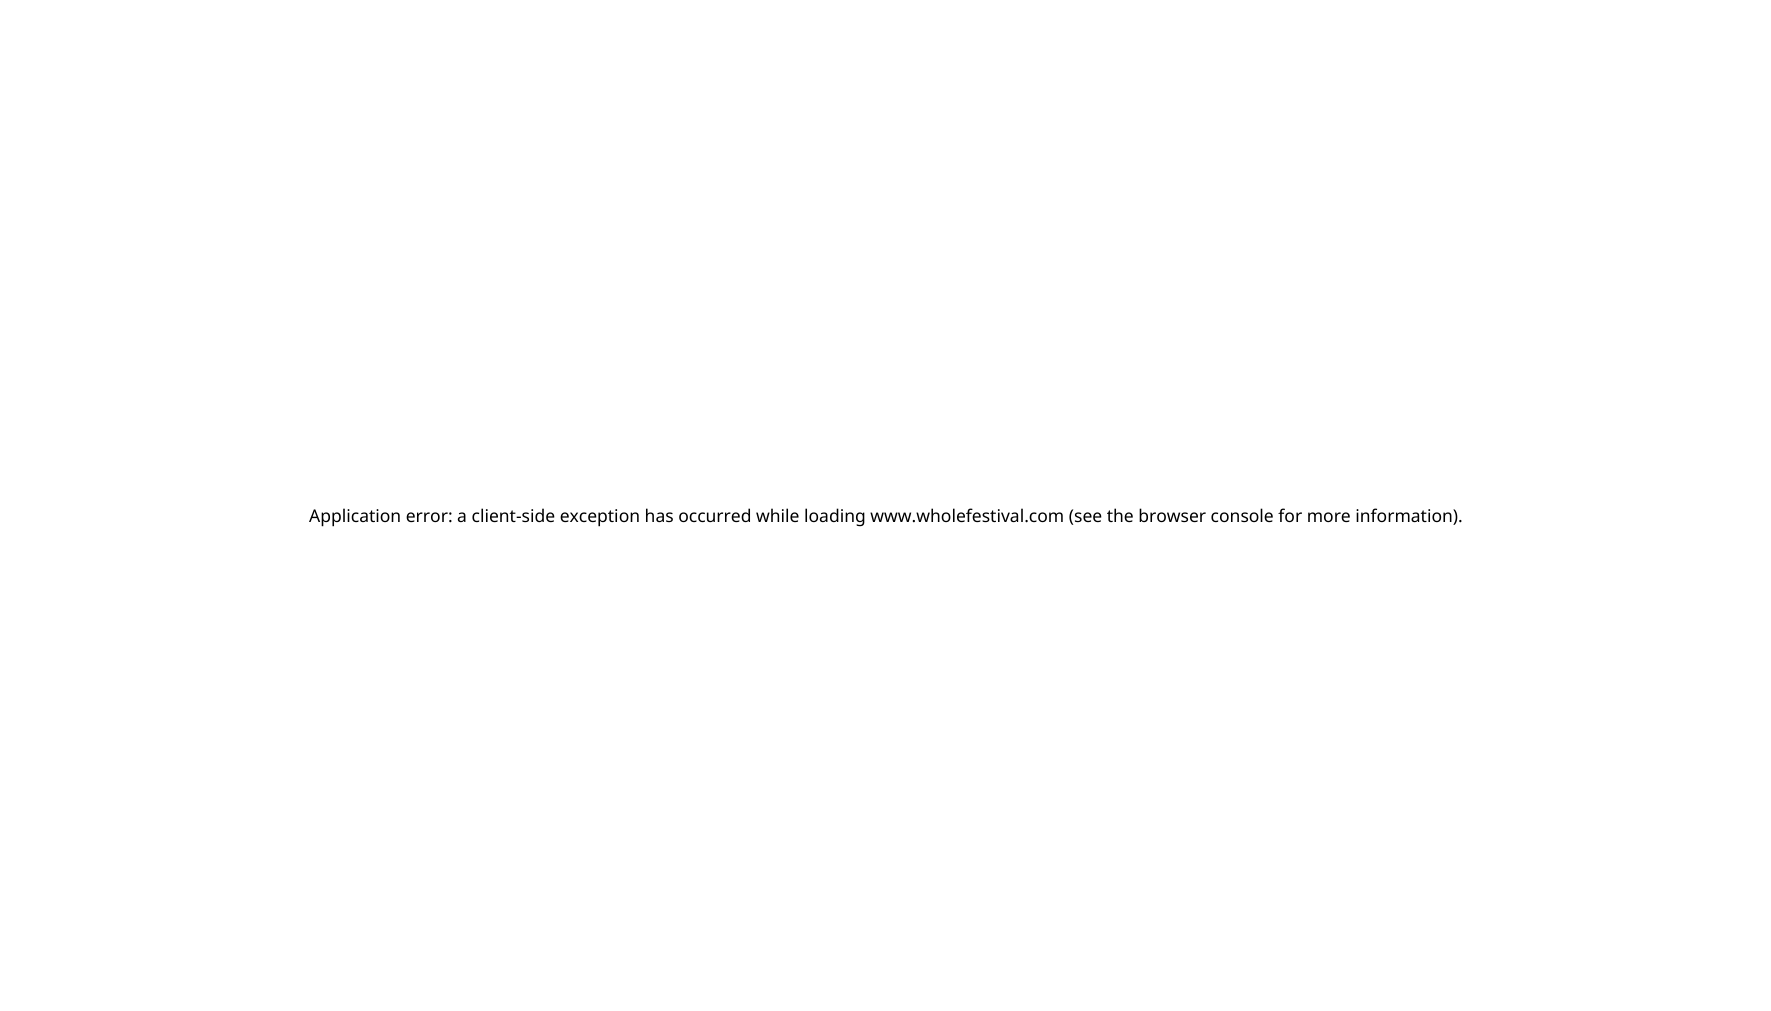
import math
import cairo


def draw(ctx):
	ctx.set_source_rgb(1, 1, 1)
	ctx.paint()
	ctx.select_font_face('Noto Sans')
	ctx.set_font_size(17.5)
	ctx.set_source_rgb(0, 0, 0)
	ctx.move_to(309, 522)
	ctx.show_text('Application error: a client-side exception has occurred while loading www.wholefestival.com (see the browser console for more information).')


surface = cairo.ImageSurface(cairo.FORMAT_RGB24, 1771, 1011)
ctx = cairo.Context(surface)
options = cairo.FontOptions()
options.set_hint_metrics(cairo.HINT_METRICS_OFF)
options.set_hint_style(cairo.HINT_STYLE_NONE)
ctx.set_font_options(options)
ctx.set_miter_limit(4)
draw(ctx)
surface.write_to_png('image.png')
